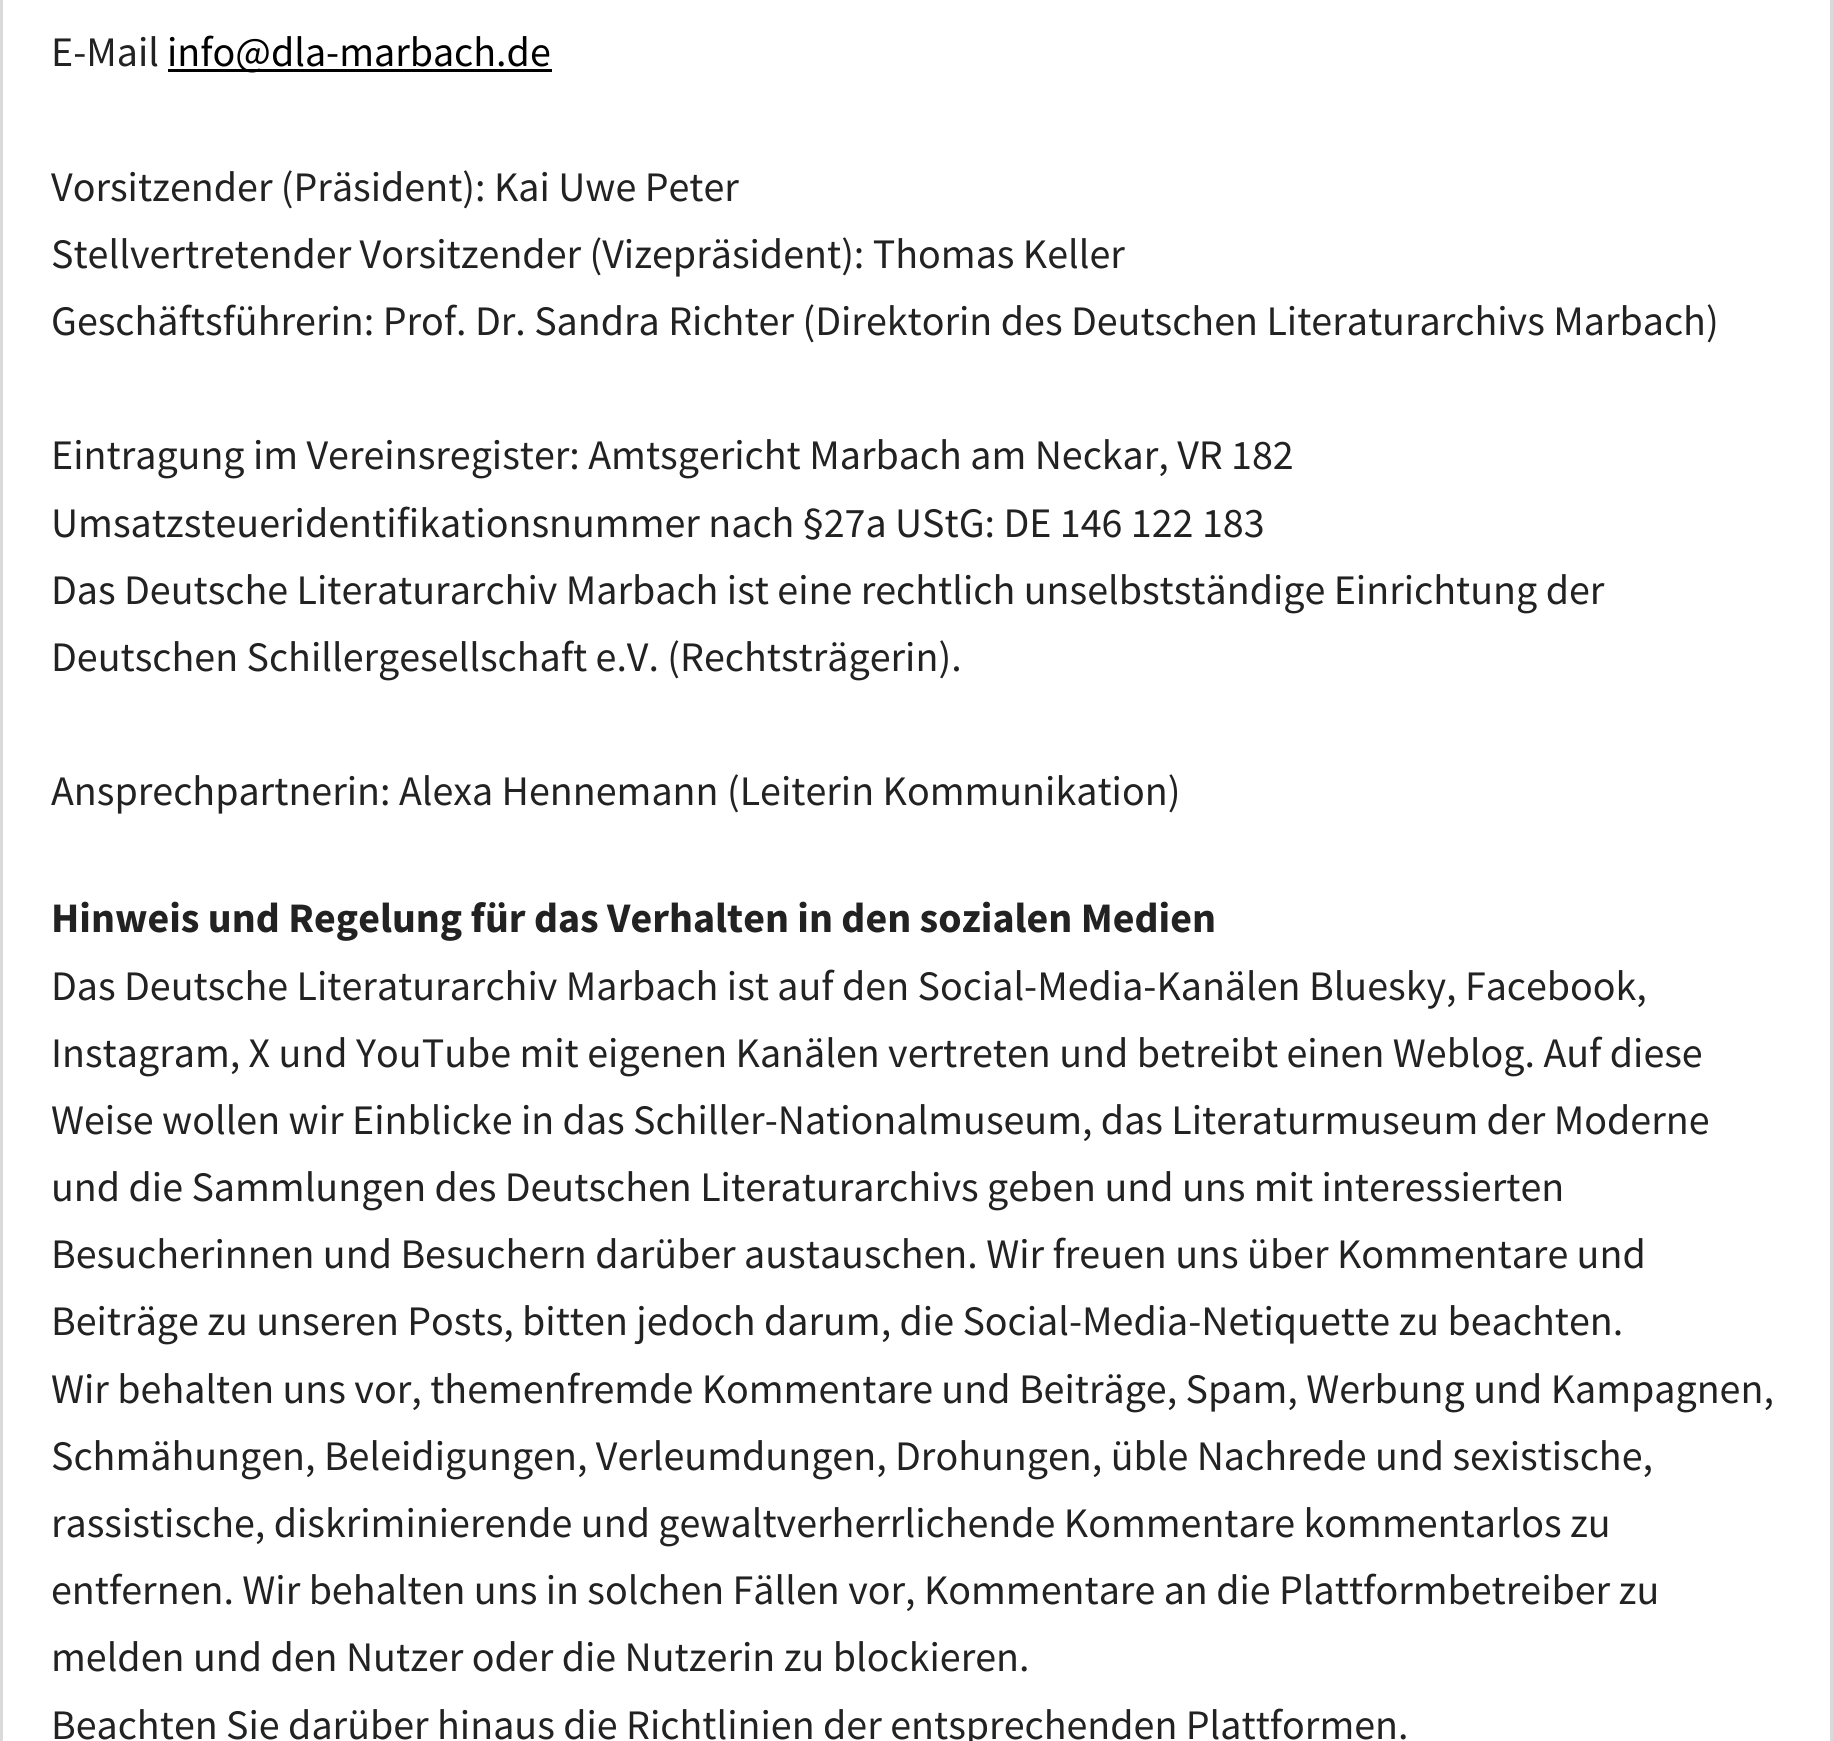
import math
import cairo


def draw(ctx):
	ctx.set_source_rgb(1, 1, 1)
	ctx.paint()
	ctx.set_source_rgb(0.855, 0.855, 0.855)
	ctx.rectangle(1830, 0, 3, 1741)
	ctx.fill()
	ctx.rectangle(0, 0, 3, 1741)
	ctx.fill()
	ctx.select_font_face('Source Sans Pro')
	ctx.set_font_size(42)
	ctx.set_source_rgb(0.133, 0.133, 0.133)
	ctx.move_to(51, 66)
	ctx.show_text('E-Mail')
	ctx.set_source_rgb(0, 0, 0)
	ctx.rectangle(168, 69, 384, 3)
	ctx.fill()
	ctx.move_to(167, 66)
	ctx.show_text('info@dla-marbach.de')
	ctx.set_source_rgb(0.133, 0.133, 0.133)
	for x, y, s in [
		(51, 201, 'Vorsitzender (Präsident): Kai Uwe Peter'),
		(51, 268, 'Stellvertretender Vorsitzender (Vizepräsident): Thomas Keller'),
		(51, 335, 'Geschäftsführerin: Prof. Dr. Sandra Richter (Direktorin des Deutschen Literaturarchivs Marbach)'),
		(51, 469, 'Eintragung im Vereinsregister: Amtsgericht Marbach am Neckar, VR 182'),
		(51, 537, 'Umsatzsteueridentifikationsnummer nach §27a UStG: DE 146 122 183'),
		(51, 604, 'Das Deutsche Literaturarchiv Marbach ist eine rechtlich unselbstständige Einrichtung der'),
		(51, 671, 'Deutschen Schillergesellschaft e.V. (Rechtsträgerin).'),
		(51, 805, 'Ansprechpartnerin: Alexa Hennemann (Leiterin Kommunikation)'),
	]:
		ctx.move_to(x, y)
		ctx.show_text(s)
	ctx.select_font_face('Source Sans Pro', cairo.FONT_SLANT_NORMAL, cairo.FONT_WEIGHT_BOLD)
	ctx.move_to(51, 932)
	ctx.show_text('Hinweis und Regelung für das Verhalten in den sozialen Medien')
	ctx.select_font_face('Source Sans Pro')
	for x, y, s in [
		(51, 1000, 'Das Deutsche Literaturarchiv Marbach ist auf den Social-Media-Kanälen Bluesky, Facebook,'),
		(51, 1067, 'Instagram, X und YouTube mit eigenen Kanälen vertreten und betreibt einen Weblog. Auf diese'),
		(51, 1134, 'Weise wollen wir Einblicke in das Schiller-Nationalmuseum, das Literaturmuseum der Moderne'),
		(51, 1201, 'und die Sammlungen des Deutschen Literaturarchivs geben und uns mit interessierten'),
		(51, 1268, 'Besucherinnen und Besuchern darüber austauschen. Wir freuen uns über Kommentare und'),
		(51, 1335, 'Beiträge zu unseren Posts, bitten jedoch darum, die Social-Media-Netiquette zu beachten.'),
		(51, 1403, 'Wir behalten uns vor, themenfremde Kommentare und Beiträge, Spam, Werbung und Kampagnen,'),
		(51, 1470, 'Schmähungen, Beleidigungen, Verleumdungen, Drohungen, üble Nachrede und sexistische,'),
		(51, 1537, 'rassistische, diskriminierende und gewaltverherrlichende Kommentare kommentarlos zu'),
		(51, 1604, 'entfernen. Wir behalten uns in solchen Fällen vor, Kommentare an die Plattformbetreiber zu'),
		(51, 1671, 'melden und den Nutzer oder die Nutzerin zu blockieren.'),
		(51, 1739, 'Beachten Sie darüber hinaus die Richtlinien der entsprechenden Plattformen.'),
	]:
		ctx.move_to(x, y)
		ctx.show_text(s)


surface = cairo.ImageSurface(cairo.FORMAT_RGB24, 1833, 1741)
ctx = cairo.Context(surface)
options = cairo.FontOptions()
options.set_hint_metrics(cairo.HINT_METRICS_OFF)
options.set_hint_style(cairo.HINT_STYLE_NONE)
ctx.set_font_options(options)
ctx.set_miter_limit(4)
draw(ctx)
surface.write_to_png('image.png')
